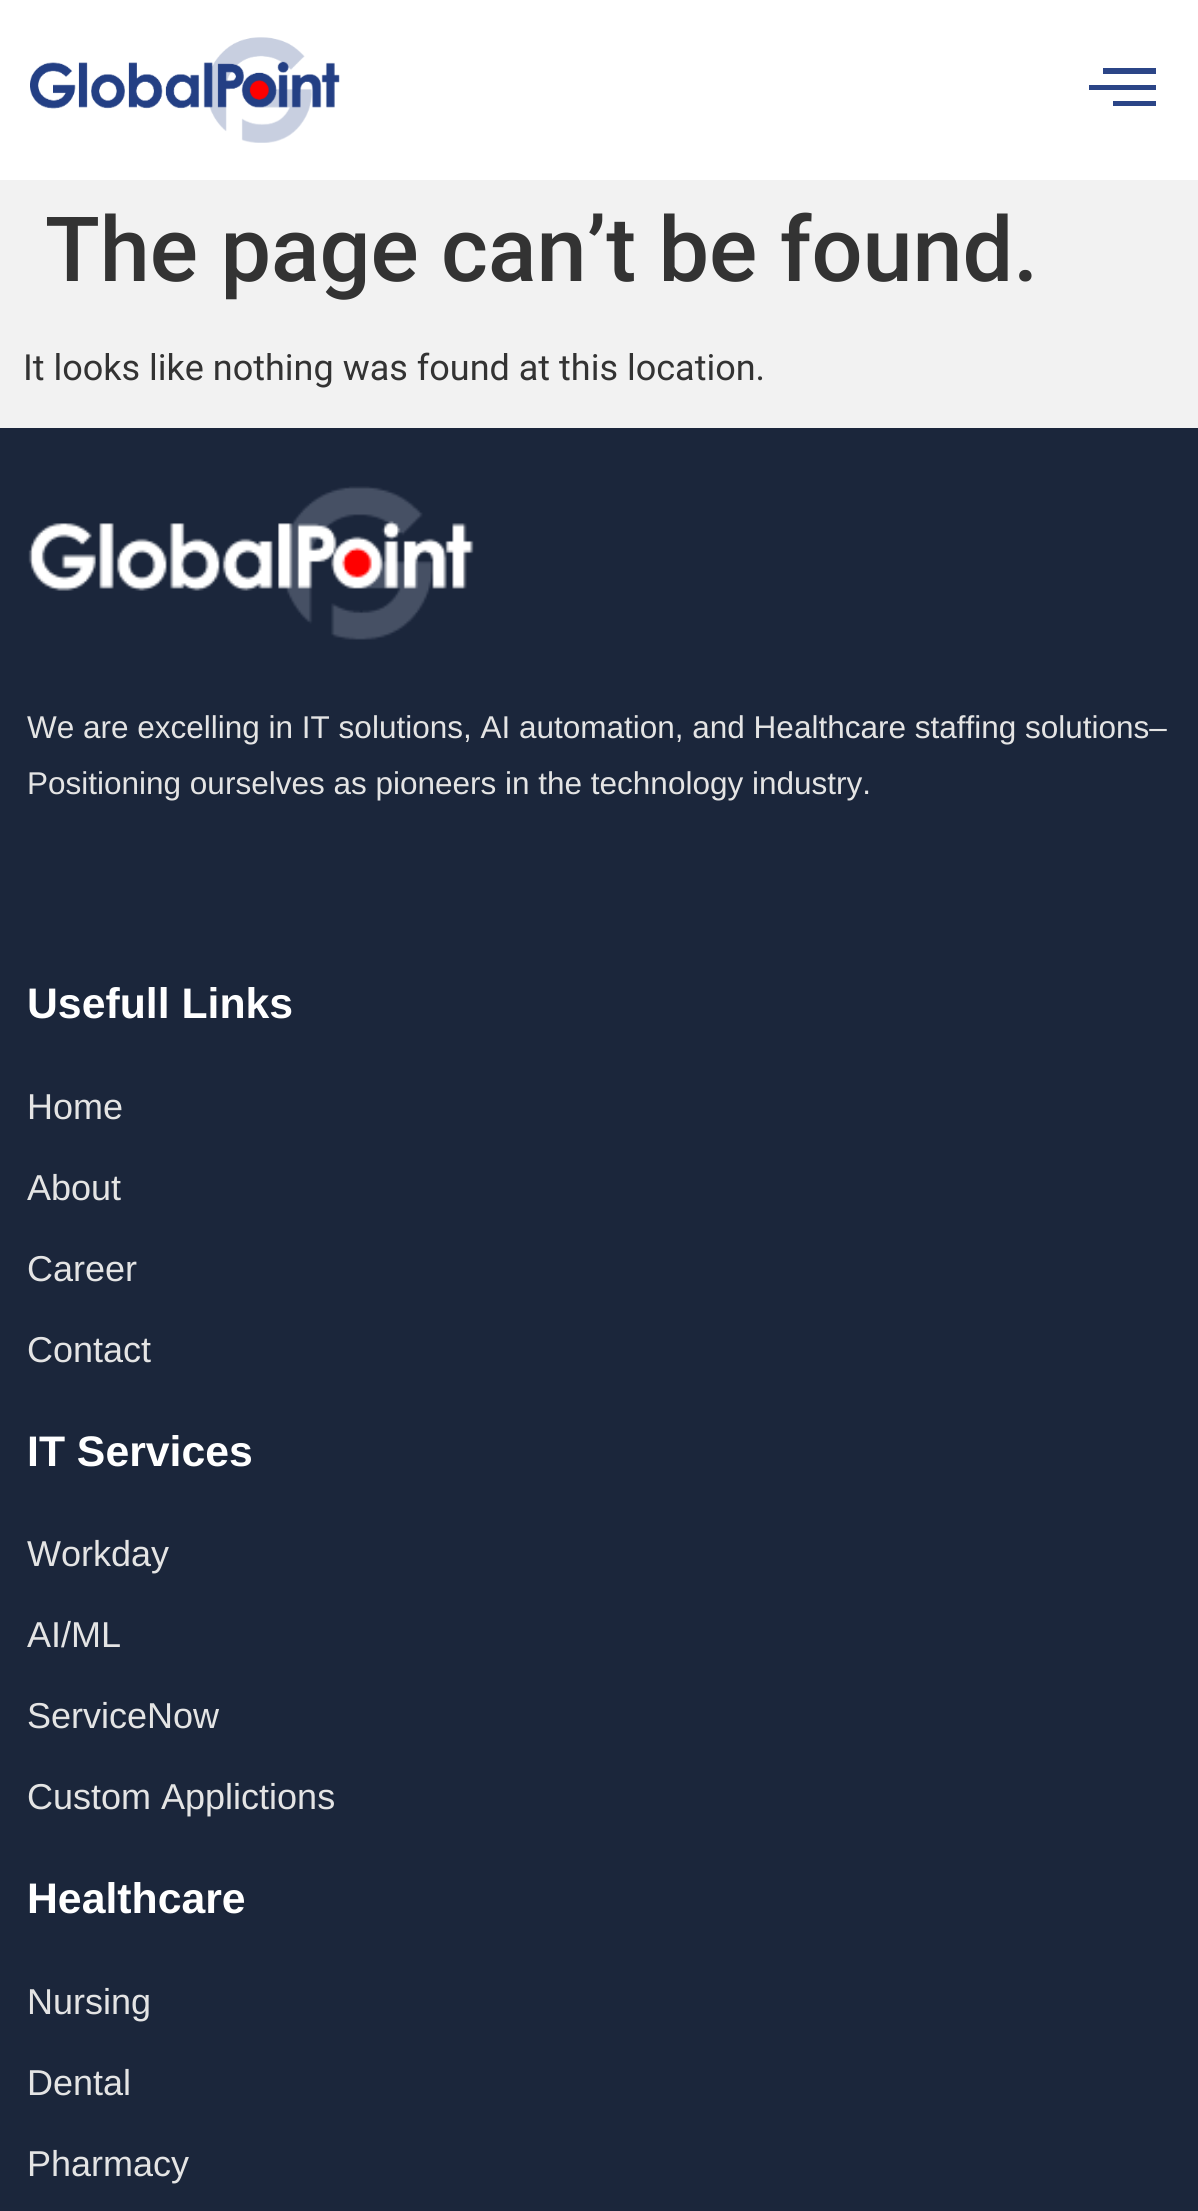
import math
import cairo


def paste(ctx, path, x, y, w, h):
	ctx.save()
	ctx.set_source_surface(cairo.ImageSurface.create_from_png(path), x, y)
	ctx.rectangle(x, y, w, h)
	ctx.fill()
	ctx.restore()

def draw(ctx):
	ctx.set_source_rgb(0.949, 0.949, 0.949)
	ctx.paint()
	ctx.set_source_rgb(1, 1, 1)
	ctx.rectangle(0, 0, 1198, 180)
	ctx.fill()
	paste(ctx, 'media/1.png', 30, 37, 310, 106)
	ctx.set_source_rgb(0.169, 0.271, 0.529)
	ctx.new_path()
	ctx.move_to(1089, 90)
	ctx.line_to(1156, 90)
	ctx.line_to(1156, 85)
	ctx.line_to(1089, 85)
	ctx.close_path()
	ctx.move_to(1113, 106)
	ctx.line_to(1156, 106)
	ctx.line_to(1156, 101)
	ctx.line_to(1113, 101)
	ctx.close_path()
	ctx.move_to(1103, 68)
	ctx.line_to(1103, 74)
	ctx.line_to(1156, 74)
	ctx.line_to(1156, 68)
	ctx.close_path()
	ctx.fill()
	ctx.select_font_face('Roboto Medium')
	ctx.set_font_size(90)
	ctx.set_source_rgb(0.2, 0.2, 0.2)
	ctx.move_to(45, 281)
	ctx.show_text('The page can’t be found.')
	ctx.select_font_face('Roboto')
	ctx.set_font_size(36)
	ctx.move_to(23, 380)
	ctx.show_text('It looks like nothing was found at this location.')
	ctx.set_source_rgb(0.106, 0.149, 0.231)
	ctx.rectangle(0, 428, 1198, 1783)
	ctx.fill()
	paste(ctx, 'media/2.png', 28, 486, 446, 154)
	ctx.select_font_face('Liberation Sans')
	ctx.set_font_size(31.5)
	ctx.set_source_rgb(0.894, 0.894, 0.894)
	ctx.move_to(27, 738)
	ctx.show_text('We are excelling in IT solutions, AI automation, and Healthcare staffing solutions–')
	ctx.move_to(27, 794)
	ctx.show_text('Positioning ourselves as pioneers in the technology industry.')
	ctx.select_font_face('Liberation Sans', cairo.FONT_SLANT_NORMAL, cairo.FONT_WEIGHT_BOLD)
	ctx.set_font_size(42.75)
	ctx.set_source_rgb(1, 1, 1)
	ctx.move_to(27, 1018)
	ctx.show_text('Usefull Links')
	ctx.select_font_face('Liberation Sans')
	ctx.set_font_size(36)
	ctx.set_source_rgb(0.894, 0.894, 0.894)
	for x, y, s in [
		(27, 1119, 'Home'),
		(27, 1200, 'About'),
		(27, 1281, 'Career'),
		(27, 1362, 'Contact'),
	]:
		ctx.move_to(x, y)
		ctx.show_text(s)
	ctx.select_font_face('Liberation Sans', cairo.FONT_SLANT_NORMAL, cairo.FONT_WEIGHT_BOLD)
	ctx.set_font_size(42.75)
	ctx.set_source_rgb(1, 1, 1)
	ctx.move_to(27, 1466)
	ctx.show_text('IT Services')
	ctx.select_font_face('Liberation Sans')
	ctx.set_font_size(36)
	ctx.set_source_rgb(0.894, 0.894, 0.894)
	for x, y, s in [
		(27, 1566, 'Workday'),
		(27, 1647, 'AI/ML'),
		(27, 1728, 'ServiceNow'),
		(27, 1809, 'Custom Applictions'),
	]:
		ctx.move_to(x, y)
		ctx.show_text(s)
	ctx.select_font_face('Liberation Sans', cairo.FONT_SLANT_NORMAL, cairo.FONT_WEIGHT_BOLD)
	ctx.set_font_size(42.75)
	ctx.set_source_rgb(1, 1, 1)
	ctx.move_to(27, 1913)
	ctx.show_text('Healthcare')
	ctx.select_font_face('Liberation Sans')
	ctx.set_font_size(36)
	ctx.set_source_rgb(0.894, 0.894, 0.894)
	for x, y, s in [
		(27, 2014, 'Nursing'),
		(27, 2095, 'Dental'),
		(27, 2176, 'Pharmacy'),
	]:
		ctx.move_to(x, y)
		ctx.show_text(s)


surface = cairo.ImageSurface(cairo.FORMAT_RGB24, 1198, 2211)
ctx = cairo.Context(surface)
options = cairo.FontOptions()
options.set_hint_metrics(cairo.HINT_METRICS_OFF)
options.set_hint_style(cairo.HINT_STYLE_NONE)
ctx.set_font_options(options)
ctx.set_miter_limit(4)
draw(ctx)
surface.write_to_png('image.png')
